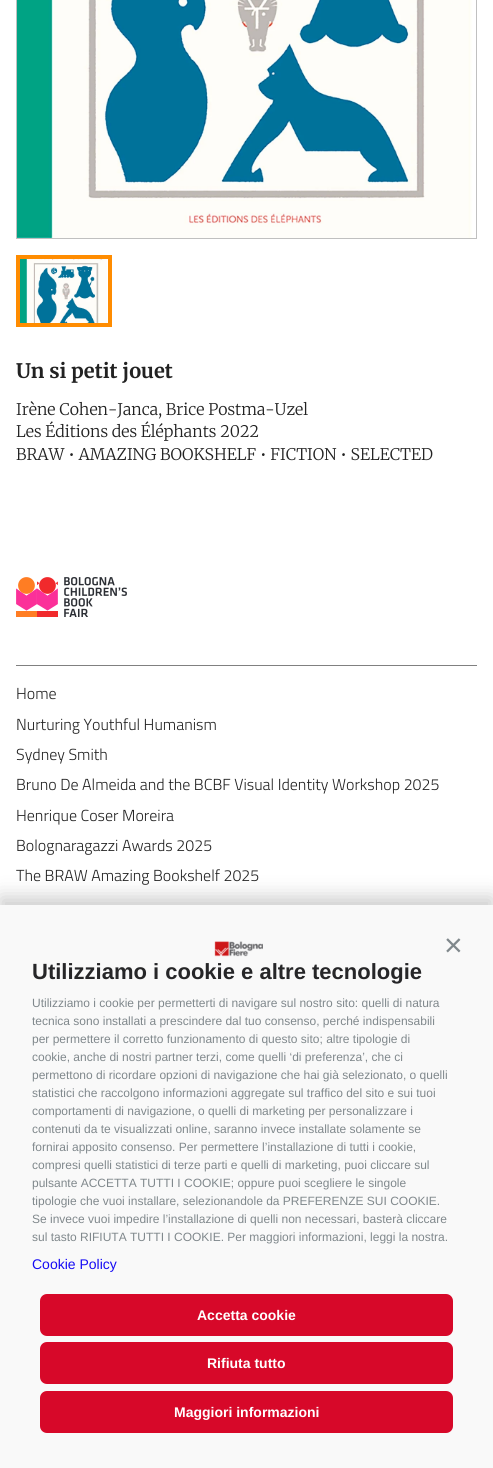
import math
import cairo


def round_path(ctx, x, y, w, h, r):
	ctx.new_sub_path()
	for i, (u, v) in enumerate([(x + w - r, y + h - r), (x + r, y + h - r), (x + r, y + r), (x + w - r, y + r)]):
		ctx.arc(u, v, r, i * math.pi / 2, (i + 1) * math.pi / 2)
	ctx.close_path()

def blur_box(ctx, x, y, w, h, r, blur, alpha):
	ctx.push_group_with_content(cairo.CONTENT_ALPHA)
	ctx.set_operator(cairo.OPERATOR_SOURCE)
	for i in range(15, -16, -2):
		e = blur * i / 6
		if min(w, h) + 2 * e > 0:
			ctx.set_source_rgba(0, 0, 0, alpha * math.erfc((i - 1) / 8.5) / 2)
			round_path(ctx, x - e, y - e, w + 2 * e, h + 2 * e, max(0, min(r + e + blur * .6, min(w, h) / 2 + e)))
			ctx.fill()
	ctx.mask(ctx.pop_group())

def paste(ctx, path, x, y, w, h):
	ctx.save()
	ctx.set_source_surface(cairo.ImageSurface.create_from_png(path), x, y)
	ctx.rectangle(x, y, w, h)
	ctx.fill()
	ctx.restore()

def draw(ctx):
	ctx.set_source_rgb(1, 1, 1)
	ctx.paint()
	ctx.rectangle(16.5, -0.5, 460, 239)
	ctx.set_source_rgb(0.753, 0.753, 0.753)
	ctx.set_line_width(1)
	ctx.stroke()
	paste(ctx, 'media/1.png', 17, 0, 459, 238)
	ctx.rectangle(18, 257, 92, 68)
	ctx.set_source_rgb(1, 0.549, 0)
	ctx.set_line_width(4)
	ctx.stroke()
	paste(ctx, 'media/2.png', 20, 259, 87, 64)
	ctx.select_font_face('Merriweather', cairo.FONT_SLANT_NORMAL, cairo.FONT_WEIGHT_BOLD)
	ctx.set_font_size(20)
	ctx.set_source_rgb(0.133, 0.133, 0.133)
	ctx.move_to(16, 378)
	ctx.show_text('Un si petit jouet')
	ctx.select_font_face('Merriweather Light')
	ctx.set_font_size(16)
	for x, y, s in [
		(16, 415, 'Irène Cohen-Janca, Brice Postma-Uzel'),
		(16, 437, 'Les Éditions des Éléphants 2022'),
		(16, 460, 'BRAW • AMAZING BOOKSHELF • FICTION • SELECTED'),
	]:
		ctx.move_to(x, y)
		ctx.show_text(s)
	ctx.set_source_rgb(0.502, 0.502, 0.502)
	ctx.rectangle(16, 665, 461, 1)
	ctx.fill()
	paste(ctx, 'media/3.png', 16, 577, 111, 40)
	ctx.select_font_face('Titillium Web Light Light')
	ctx.set_source_rgb(0.133, 0.133, 0.133)
	for x, y, s in [
		(16, 699, 'Home'),
		(16, 730, 'Nurturing Youthful Humanism'),
		(16, 760, 'Sydney Smith'),
		(16, 790, 'Bruno De Almeida and the BCBF Visual Identity Workshop 2025'),
		(16, 821, 'Henrique Coser Moreira'),
		(16, 851, 'Bolognaragazzi Awards 2025'),
		(16, 881, 'The BRAW Amazing Bookshelf 2025'),
	]:
		ctx.move_to(x, y)
		ctx.show_text(s)
	ctx.set_source_rgb(0, 0, 0)
	blur_box(ctx, 0, 897, 493, 563, 0, 10, 0.2)
	ctx.set_source_rgb(0.976, 0.976, 0.976)
	ctx.rectangle(0, 905, 493, 563)
	ctx.fill()
	paste(ctx, 'media/4.png', 214, 941, 49, 16)
	ctx.select_font_face('Liberation Sans')
	ctx.set_font_size(32)
	ctx.set_source_rgb(0.502, 0.533, 0.549)
	ctx.move_to(444, 956)
	ctx.show_text('×')
	ctx.select_font_face('Liberation Sans', cairo.FONT_SLANT_NORMAL, cairo.FONT_WEIGHT_BOLD)
	ctx.set_font_size(22)
	ctx.set_source_rgb(0.149, 0.149, 0.157)
	ctx.move_to(32, 979)
	ctx.show_text('Utilizziamo i cookie e altre tecnologie')
	ctx.select_font_face('Liberation Sans')
	ctx.set_font_size(12)
	ctx.set_source_rgb(0.502, 0.533, 0.549)
	for x, y, s in [
		(32, 1007, 'Utilizziamo i cookie per permetterti di navigare sul nostro sito: quelli di natura'),
		(32, 1025, 'tecnica sono installati a prescindere dal tuo consenso, perché indispensabili'),
		(32, 1043, 'per permettere il corretto funzionamento di questo sito; altre tipologie di'),
		(32, 1061, 'cookie, anche di nostri partner terzi, come quelli ‘di preferenza’, che ci'),
		(32, 1079, 'permettono di ricordare opzioni di navigazione che hai già selezionato, o quelli'),
		(32, 1097, 'statistici che raccolgono informazioni aggregate sul traffico del sito e sui tuoi'),
		(32, 1115, 'comportamenti di navigazione, o quelli di marketing per personalizzare i'),
		(32, 1133, 'contenuti da te visualizzati online, saranno invece installate solamente se'),
		(32, 1151, 'fornirai apposito consenso. Per permettere l’installazione di tutti i cookie,'),
		(32, 1169, 'compresi quelli statistici di terze parti e quelli di marketing, puoi cliccare sul'),
		(32, 1187, 'pulsante ACCETTA TUTTI I COOKIE; oppure puoi scegliere le singole'),
		(32, 1205, 'tipologie che vuoi installare, selezionandole da PREFERENZE SUI COOKIE.'),
		(32, 1223, 'Se invece vuoi impedire l’installazione di quelli non necessari, basterà cliccare'),
		(32, 1241, 'sul tasto RIFIUTA TUTTI I COOKIE. Per maggiori informazioni, leggi la nostra.'),
	]:
		ctx.move_to(x, y)
		ctx.show_text(s)
	ctx.set_font_size(14)
	ctx.set_source_rgb(0.086, 0.043, 0.957)
	ctx.move_to(32, 1269)
	ctx.show_text('Cookie Policy')
	ctx.set_source_rgb(0.843, 0.035, 0.161)
	round_path(ctx, 40, 1294, 413, 42, 7)
	ctx.fill()
	ctx.select_font_face('Liberation Sans', cairo.FONT_SLANT_NORMAL, cairo.FONT_WEIGHT_BOLD)
	ctx.set_source_rgb(1, 1, 1)
	ctx.move_to(197, 1320)
	ctx.show_text('Accetta cookie')
	ctx.set_source_rgb(0.843, 0.035, 0.161)
	round_path(ctx, 40, 1342, 413, 42, 7)
	ctx.fill()
	ctx.set_source_rgb(1, 1, 1)
	ctx.move_to(207, 1368)
	ctx.show_text('Rifiuta tutto')
	ctx.set_source_rgb(0.843, 0.035, 0.161)
	round_path(ctx, 40, 1391, 413, 42, 7)
	ctx.fill()
	ctx.set_source_rgb(1, 1, 1)
	ctx.move_to(174, 1417)
	ctx.show_text('Maggiori informazioni')


surface = cairo.ImageSurface(cairo.FORMAT_RGB24, 493, 1468)
ctx = cairo.Context(surface)
options = cairo.FontOptions()
options.set_hint_metrics(cairo.HINT_METRICS_OFF)
options.set_hint_style(cairo.HINT_STYLE_NONE)
ctx.set_font_options(options)
ctx.set_miter_limit(4)
draw(ctx)
surface.write_to_png('image.png')
